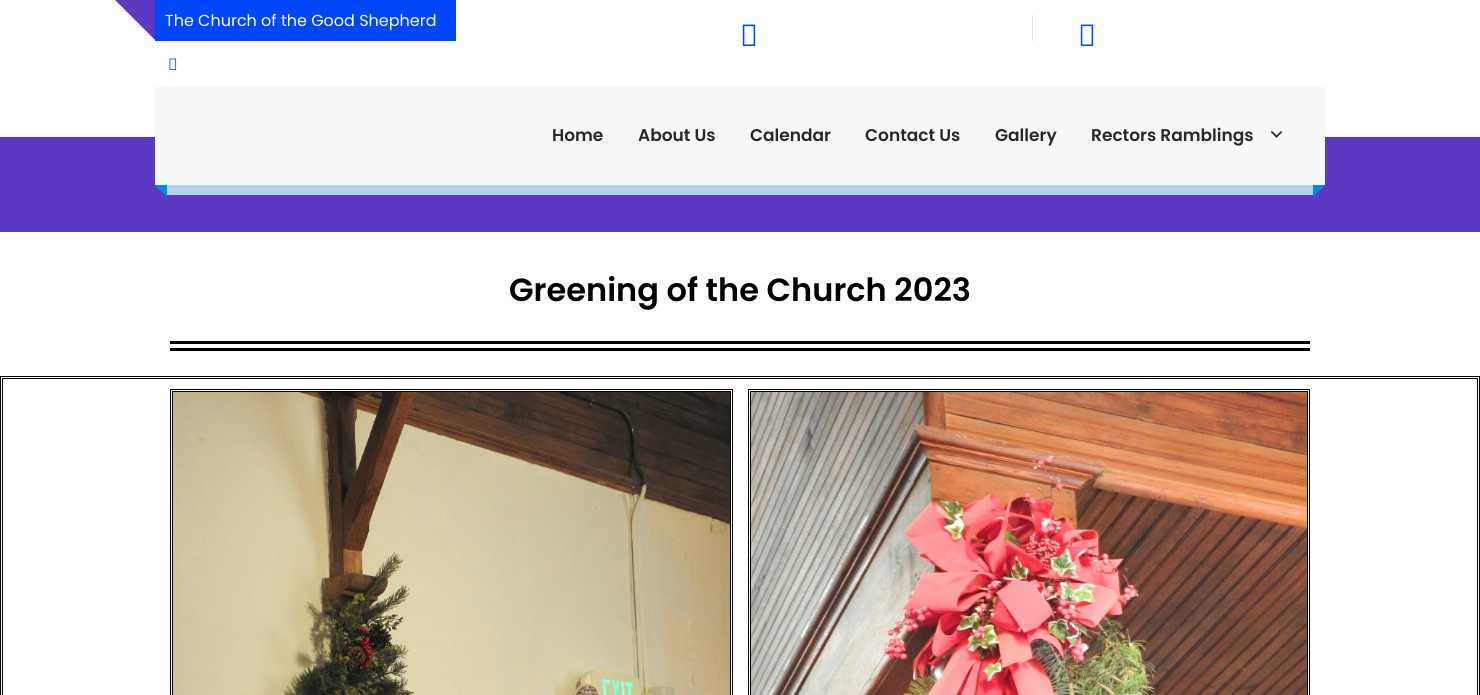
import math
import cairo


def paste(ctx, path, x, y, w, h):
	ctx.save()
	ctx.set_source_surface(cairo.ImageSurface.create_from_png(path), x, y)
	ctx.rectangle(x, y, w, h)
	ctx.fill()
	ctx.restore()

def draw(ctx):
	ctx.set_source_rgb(1, 1, 1)
	ctx.paint()
	ctx.set_source_rgb(0.361, 0.224, 0.761)
	ctx.new_path()
	ctx.move_to(115, 0)
	ctx.line_to(155, 0)
	ctx.line_to(155, 40)
	ctx.close_path()
	ctx.fill()
	ctx.set_source_rgb(0, 0.275, 0.976)
	ctx.rectangle(155, 0, 301, 41)
	ctx.fill()
	ctx.select_font_face('Poppins')
	ctx.set_font_size(16)
	ctx.set_source_rgb(1, 1, 1)
	ctx.move_to(165, 26)
	ctx.show_text('The Church of the Good Shepherd')
	paste(ctx, 'media/1.png', 169, 58, 8, 12)
	ctx.set_source_rgb(0.898, 0.898, 0.898)
	ctx.rectangle(1032, 15, 1, 26)
	ctx.fill()
	paste(ctx, 'media/2.png', 742, 24, 14, 22)
	paste(ctx, 'media/2.png', 1080, 24, 14, 22)
	ctx.set_source_rgb(0.361, 0.224, 0.761)
	ctx.rectangle(0, 137, 1480, 95)
	ctx.fill()
	ctx.set_source_rgb(0.706, 0.827, 0.914)
	ctx.rectangle(167, 185, 1146, 10)
	ctx.fill()
	ctx.set_source_rgb(0.961, 0.965, 0.965)
	ctx.rectangle(155, 87, 1170, 98)
	ctx.fill()
	ctx.select_font_face('Poppins SemiBold')
	ctx.set_font_size(17)
	ctx.set_source_rgb(0.157, 0.157, 0.157)
	for x, y, s in [
		(552, 141, 'Home'),
		(638, 141, 'About Us'),
		(750, 141, 'Calendar'),
		(865, 141, 'Contact Us'),
		(995, 141, 'Gallery'),
		(1091, 141, 'Rectors Ramblings'),
	]:
		ctx.move_to(x, y)
		ctx.show_text(s)
	paste(ctx, 'media/3.png', 1270, 131, 13, 7)
	ctx.set_source_rgb(0.008, 0.553, 0.933)
	ctx.new_path()
	ctx.move_to(155, 185)
	ctx.line_to(167, 185)
	ctx.line_to(167, 197)
	ctx.close_path()
	ctx.fill()
	ctx.new_path()
	ctx.move_to(1313, 185)
	ctx.line_to(1325, 185)
	ctx.line_to(1313, 197)
	ctx.close_path()
	ctx.fill()
	ctx.set_font_size(32)
	ctx.set_source_rgb(0, 0, 0)
	ctx.move_to(509, 301)
	ctx.show_text('Greening of the Church 2023')
	ctx.rectangle(170, 341, 1140, 3)
	ctx.fill()
	ctx.rectangle(170, 348, 1140, 3)
	ctx.fill()
	ctx.rectangle(0.5, 376.5, 1479, 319)
	ctx.set_line_width(1)
	ctx.stroke()
	ctx.rectangle(2.5, 378.5, 1475, 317)
	ctx.stroke()
	ctx.rectangle(170.5, 389.5, 562, 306)
	ctx.stroke()
	ctx.rectangle(172.5, 391.5, 558, 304)
	ctx.stroke()
	paste(ctx, 'media/4.png', 173, 392, 557, 303)
	ctx.rectangle(748.5, 389.5, 561, 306)
	ctx.stroke()
	ctx.rectangle(750.5, 391.5, 557, 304)
	ctx.stroke()
	paste(ctx, 'media/5.png', 751, 392, 556, 303)


surface = cairo.ImageSurface(cairo.FORMAT_RGB24, 1480, 695)
ctx = cairo.Context(surface)
options = cairo.FontOptions()
options.set_hint_metrics(cairo.HINT_METRICS_OFF)
options.set_hint_style(cairo.HINT_STYLE_NONE)
ctx.set_font_options(options)
ctx.set_miter_limit(4)
draw(ctx)
surface.write_to_png('image.png')
